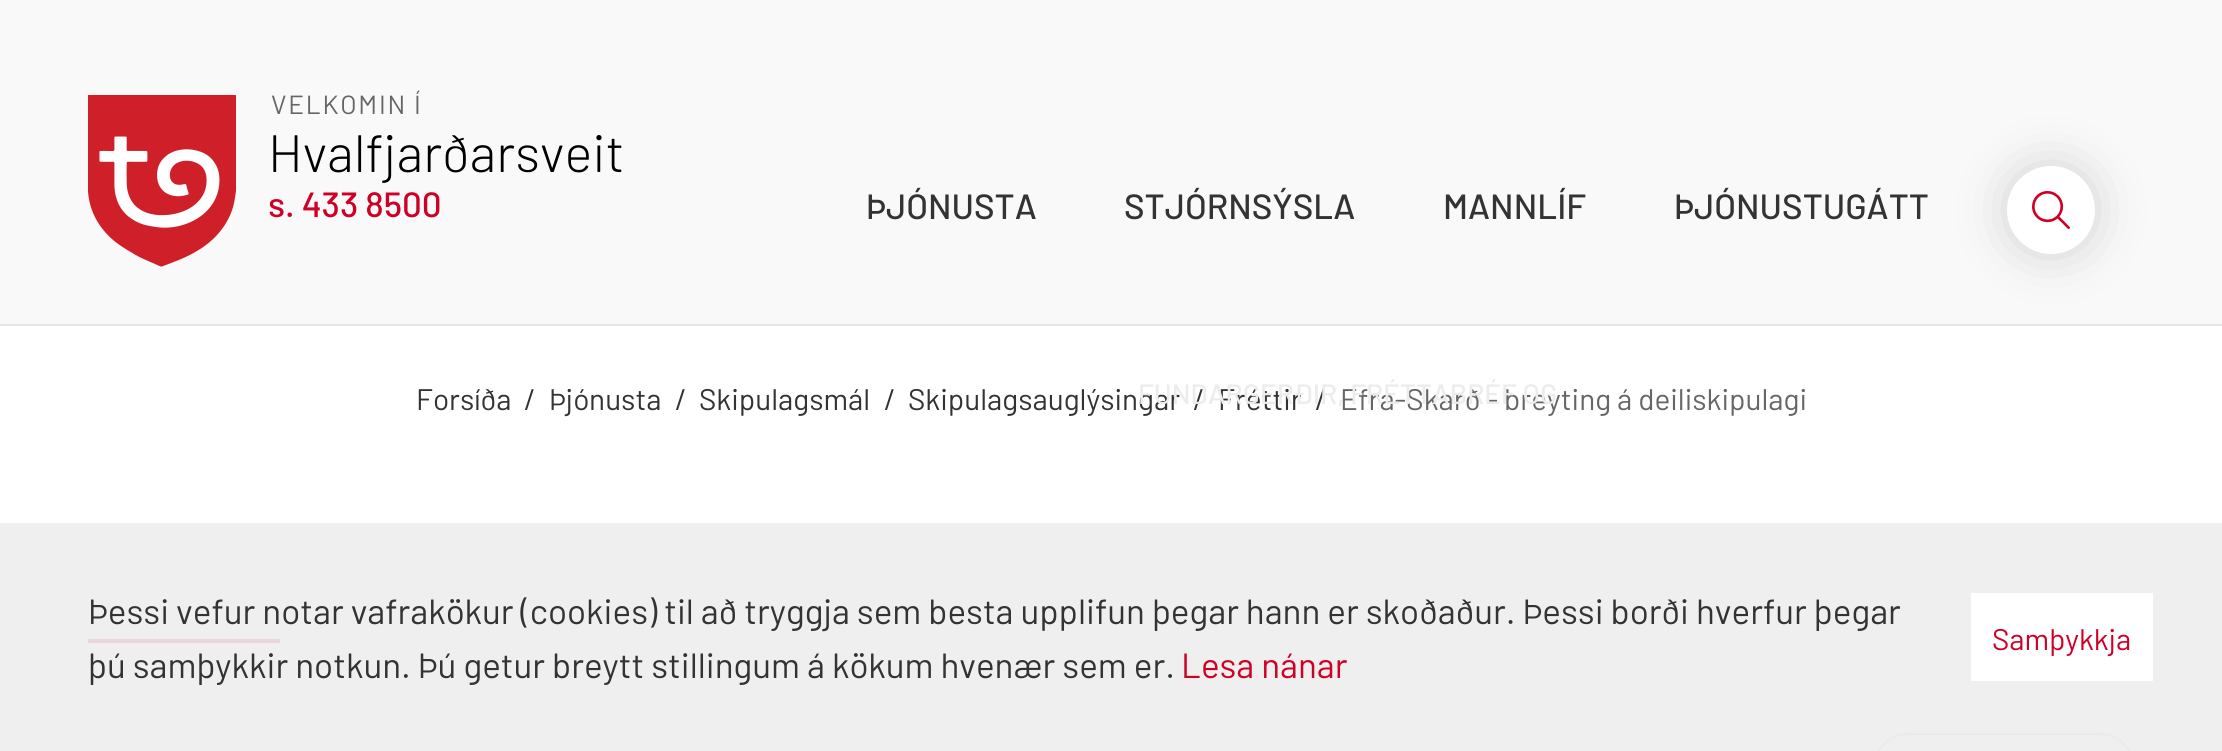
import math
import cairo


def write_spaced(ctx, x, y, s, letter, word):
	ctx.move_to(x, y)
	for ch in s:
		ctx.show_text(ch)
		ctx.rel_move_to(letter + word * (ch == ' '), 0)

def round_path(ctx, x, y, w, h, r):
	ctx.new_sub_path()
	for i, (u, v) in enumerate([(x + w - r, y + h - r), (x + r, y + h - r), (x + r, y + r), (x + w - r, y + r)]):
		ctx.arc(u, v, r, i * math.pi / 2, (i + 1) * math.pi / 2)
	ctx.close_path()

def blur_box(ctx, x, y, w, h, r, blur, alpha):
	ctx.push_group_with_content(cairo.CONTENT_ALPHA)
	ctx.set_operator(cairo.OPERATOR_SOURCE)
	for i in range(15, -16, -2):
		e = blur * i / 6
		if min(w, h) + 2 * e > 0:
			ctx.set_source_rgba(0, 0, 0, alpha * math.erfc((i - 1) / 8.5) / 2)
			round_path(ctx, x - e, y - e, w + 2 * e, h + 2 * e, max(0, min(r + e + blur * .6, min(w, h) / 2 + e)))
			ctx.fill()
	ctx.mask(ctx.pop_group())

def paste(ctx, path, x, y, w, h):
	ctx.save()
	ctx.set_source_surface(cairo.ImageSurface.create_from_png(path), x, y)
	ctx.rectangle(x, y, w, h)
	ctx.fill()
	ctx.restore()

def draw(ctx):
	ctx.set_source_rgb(1, 1, 1)
	ctx.paint()
	ctx.set_source_rgb(0.976, 0.976, 0.976)
	ctx.rectangle(0, 0, 2222, 324)
	ctx.fill()
	ctx.set_source_rgb(0.898, 0.898, 0.898)
	ctx.rectangle(0, 324, 2222, 2)
	ctx.fill()
	paste(ctx, 'media/1.png', 88, 95, 148, 172)
	ctx.select_font_face('Barlow')
	ctx.set_font_size(26.25)
	ctx.set_source_rgb(0.4, 0.4, 0.4)
	write_spaced(ctx, 271, 114, 'VELKOMIN Í', 1.75, 0)
	ctx.select_font_face('Barlow Light')
	ctx.set_font_size(52.5)
	ctx.set_source_rgb(0, 0, 0)
	ctx.move_to(268, 172)
	ctx.show_text('Hvalfjarðarsveit')
	ctx.select_font_face('Barlow Medium')
	ctx.set_font_size(35)
	ctx.set_source_rgb(0.812, 0, 0.149)
	ctx.move_to(268, 217)
	ctx.show_text('s. 433 8500')
	ctx.set_source_rgb(0.2, 0.2, 0.2)
	ctx.move_to(866, 219)
	ctx.show_text('ÞJÓNUSTA')
	ctx.move_to(1124, 219)
	ctx.show_text('STJÓRNSÝSLA')
	ctx.select_font_face('Barlow')
	ctx.set_font_size(29.75)
	for x, y, s in [
		(908, 410, 'Skipulagsauglýsingar'),
		(1193, 410, '/'),
		(1218, 410, 'Fréttir'),
		(1315, 410, '/'),
	]:
		ctx.move_to(x, y)
		ctx.show_text(s)
	ctx.set_source_rgb(0.4, 0.4, 0.4)
	ctx.move_to(1340, 410)
	ctx.show_text('Efra-Skarð - breyting á deiliskipulagi')
	ctx.select_font_face('Barlow Medium')
	ctx.set_font_size(28)
	ctx.set_source_rgb(0.922, 0.922, 0.922)
	ctx.move_to(1138, 404)
	ctx.show_text('FUNDARGERÐIR, FRÉTTABRÉF OG')
	ctx.set_font_size(35)
	ctx.set_source_rgb(0.2, 0.2, 0.2)
	ctx.move_to(1443, 219)
	ctx.show_text('MANNLÍF')
	ctx.move_to(1674, 219)
	ctx.show_text('ÞJÓNUSTUGÁTT')
	ctx.set_source_rgb(0, 0, 0)
	blur_box(ctx, 2014, 173, 74, 74, 37, 27, 0.2)
	ctx.set_source_rgb(1, 1, 1)
	ctx.arc(2051, 210, 44, 0, 2 * math.pi)
	ctx.fill()
	paste(ctx, 'media/2.png', 2032, 191, 38, 38)
	ctx.select_font_face('Barlow')
	ctx.set_font_size(29.75)
	ctx.set_source_rgb(0.2, 0.2, 0.2)
	for x, y, s in [
		(416, 410, 'Forsíða'),
		(524, 410, '/'),
		(549, 410, 'Þjónusta'),
		(675, 410, '/'),
		(699, 410, 'Skipulagsmál'),
		(884, 410, '/'),
	]:
		ctx.move_to(x, y)
		ctx.show_text(s)
	ctx.set_source_rgb(0.812, 0, 0.149)
	ctx.rectangle(88, 639, 192, 4)
	ctx.fill()
	round_path(ctx, 1874, 734, 260, 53, 34)
	ctx.set_source_rgb(0.8, 0.8, 0.8)
	ctx.stroke()
	ctx.set_source_rgba(0.933, 0.933, 0.933, 0.9)
	ctx.rectangle(0, 523, 2222, 228)
	ctx.fill()
	ctx.set_font_size(35)
	ctx.set_source_rgb(0.2, 0.2, 0.2)
	ctx.move_to(88, 624)
	ctx.show_text('Þessi vefur notar vafrakökur (cookies) til að tryggja sem besta upplifun þegar hann er skoðaður. Þessi borði hverfur þegar')
	ctx.move_to(88, 678)
	ctx.show_text('þú samþykkir notkun. Þú getur breytt stillingum á kökum hvenær sem er.')
	ctx.set_source_rgb(0.812, 0, 0.149)
	ctx.move_to(1181, 678)
	ctx.show_text('Lesa nánar')
	ctx.set_source_rgb(1, 1, 1)
	ctx.rectangle(1971, 593, 182, 88)
	ctx.fill()
	ctx.set_font_size(29.75)
	ctx.set_source_rgb(0.812, 0, 0.149)
	ctx.move_to(1992, 650)
	ctx.show_text('Samþykkja')


surface = cairo.ImageSurface(cairo.FORMAT_RGB24, 2222, 751)
ctx = cairo.Context(surface)
options = cairo.FontOptions()
options.set_hint_metrics(cairo.HINT_METRICS_OFF)
options.set_hint_style(cairo.HINT_STYLE_NONE)
ctx.set_font_options(options)
ctx.set_miter_limit(4)
draw(ctx)
surface.write_to_png('image.png')
